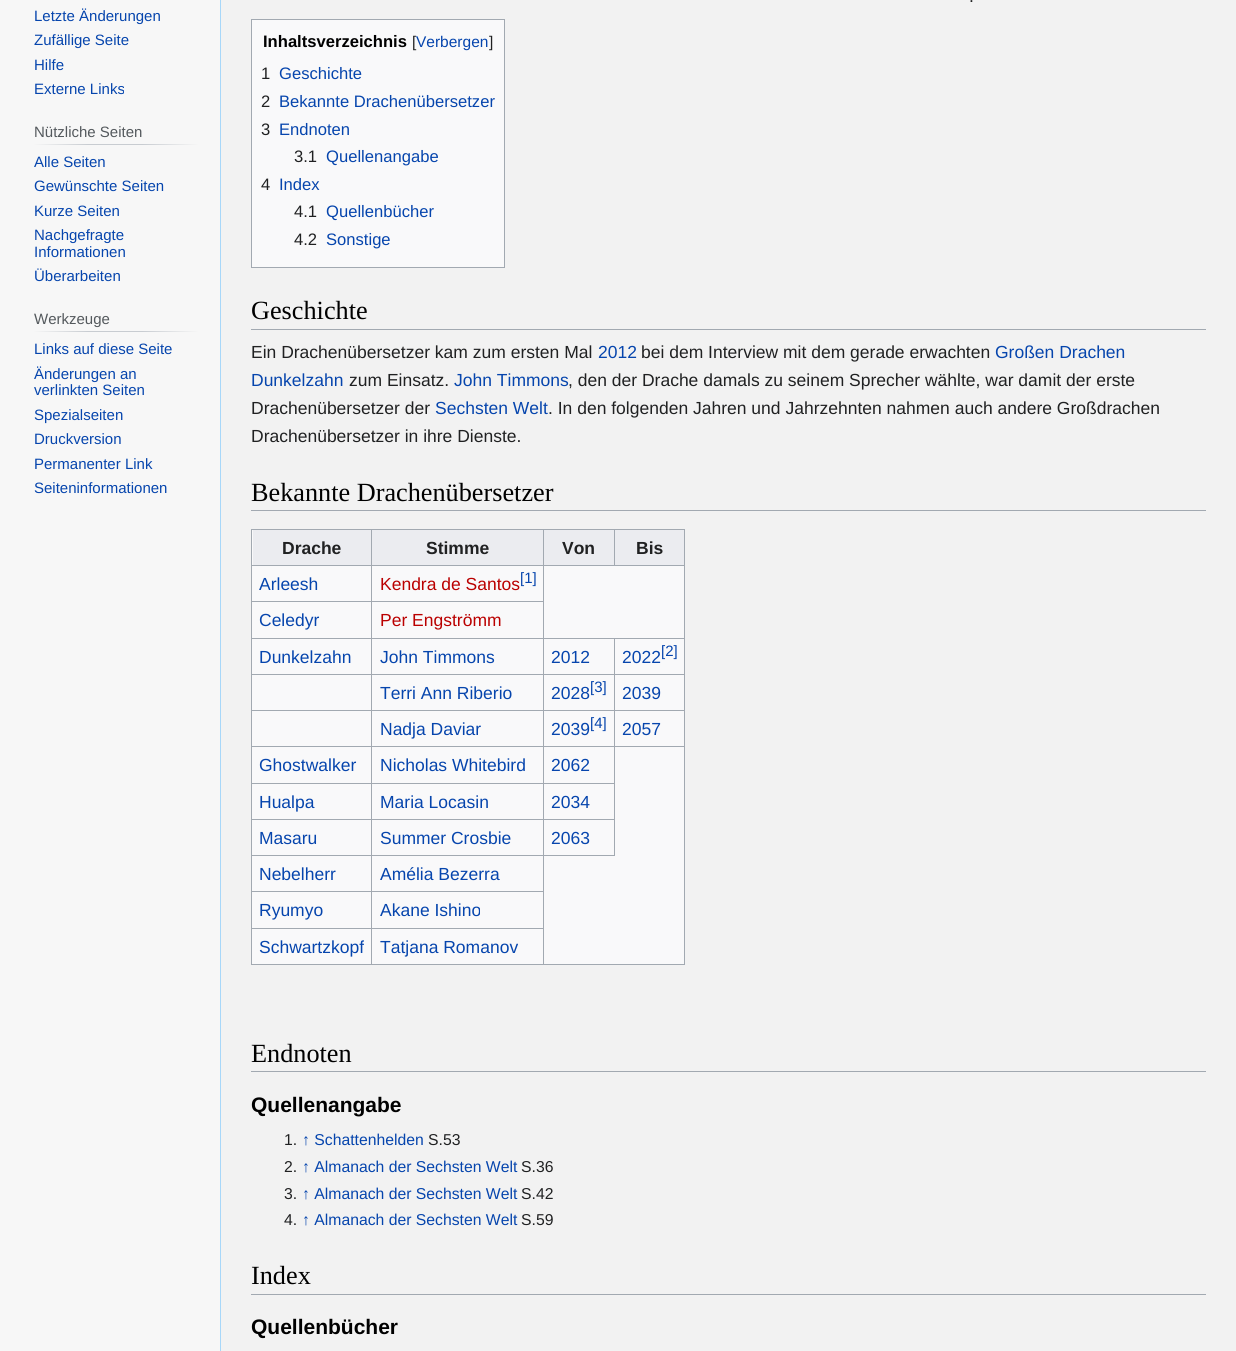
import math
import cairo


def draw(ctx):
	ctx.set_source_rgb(0.965, 0.965, 0.965)
	ctx.paint()
	ctx.select_font_face('Liberation Sans')
	ctx.set_font_size(15)
	ctx.set_source_rgb(0.024, 0.271, 0.678)
	for x, y, s in [
		(34, 21, 'Letzte Änderungen'),
		(34, 45, 'Zufällige Seite'),
		(34, 70, 'Hilfe'),
		(34, 94, 'Externe Links'),
	]:
		ctx.move_to(x, y)
		ctx.show_text(s)
	gradient = cairo.LinearGradient(34, 144, 198, 144)
	gradient.add_color_stop_rgba(0, 0.965, 0.965, 0.965, 1)
	gradient.add_color_stop_rgba(0.33, 0.784, 0.8, 0.82, 1)
	gradient.add_color_stop_rgba(0.66, 0.784, 0.8, 0.82, 1)
	gradient.add_color_stop_rgba(1, 0.965, 0.965, 0.965, 1)
	ctx.set_source(gradient)
	ctx.rectangle(34, 144, 164, 1)
	ctx.fill()
	ctx.set_source_rgb(0.329, 0.349, 0.365)
	ctx.move_to(34, 137)
	ctx.show_text('Nützliche Seiten')
	ctx.set_source_rgb(0.024, 0.271, 0.678)
	for x, y, s in [
		(34, 167, 'Alle Seiten'),
		(34, 191, 'Gewünschte Seiten'),
		(34, 216, 'Kurze Seiten'),
		(34, 240, 'Nachgefragte'),
		(34, 257, 'Informationen'),
		(34, 281, 'Überarbeiten'),
	]:
		ctx.move_to(x, y)
		ctx.show_text(s)
	gradient = cairo.LinearGradient(34, 332, 198, 332)
	gradient.add_color_stop_rgba(0, 0.965, 0.965, 0.965, 1)
	gradient.add_color_stop_rgba(0.33, 0.784, 0.8, 0.82, 1)
	gradient.add_color_stop_rgba(0.66, 0.784, 0.8, 0.82, 1)
	gradient.add_color_stop_rgba(1, 0.965, 0.965, 0.965, 1)
	ctx.set_source(gradient)
	ctx.rectangle(34, 331, 164, 1)
	ctx.fill()
	ctx.set_source_rgb(0.329, 0.349, 0.365)
	ctx.move_to(34, 324)
	ctx.show_text('Werkzeuge')
	ctx.set_source_rgb(0.024, 0.271, 0.678)
	for x, y, s in [
		(34, 354, 'Links auf diese Seite'),
		(34, 379, 'Änderungen an'),
		(34, 395, 'verlinkten Seiten'),
		(34, 420, 'Spezialseiten'),
		(34, 444, 'Druckversion'),
		(34, 469, 'Permanenter Link'),
		(34, 493, 'Seiteninformationen'),
	]:
		ctx.move_to(x, y)
		ctx.show_text(s)
	ctx.set_source_rgb(0.949, 0.949, 0.949)
	ctx.rectangle(221, 0, 1015, 1351)
	ctx.fill()
	ctx.set_source_rgb(0.655, 0.843, 0.976)
	ctx.rectangle(220, 0, 1, 1351)
	ctx.fill()
	ctx.set_font_size(17.5)
	ctx.set_source_rgb(0.125, 0.129, 0.133)
	ctx.move_to(969, 2)
	ctx.show_text('.')
	ctx.set_source_rgb(0.973, 0.976, 0.98)
	ctx.rectangle(251.5, 19.5, 253, 248)
	ctx.fill_preserve()
	ctx.set_source_rgb(0.635, 0.663, 0.694)
	ctx.set_line_width(1)
	ctx.stroke()
	ctx.select_font_face('Liberation Sans', cairo.FONT_SLANT_NORMAL, cairo.FONT_WEIGHT_BOLD)
	ctx.set_font_size(16.6)
	ctx.set_source_rgb(0, 0, 0)
	ctx.move_to(263, 47)
	ctx.show_text('Inhaltsverzeichnis')
	ctx.select_font_face('Liberation Sans')
	ctx.set_font_size(15.5)
	ctx.set_source_rgb(0.125, 0.129, 0.133)
	ctx.move_to(412, 47)
	ctx.show_text('[')
	ctx.set_source_rgb(0.024, 0.271, 0.678)
	ctx.move_to(416, 47)
	ctx.show_text('Verbergen')
	ctx.set_source_rgb(0.125, 0.129, 0.133)
	ctx.move_to(489, 47)
	ctx.show_text(']')
	ctx.set_font_size(16.6)
	ctx.move_to(261, 79)
	ctx.show_text('1')
	ctx.set_source_rgb(0.024, 0.271, 0.678)
	ctx.move_to(279, 79)
	ctx.show_text('Geschichte')
	ctx.set_source_rgb(0.125, 0.129, 0.133)
	ctx.move_to(261, 107)
	ctx.show_text('2')
	ctx.set_source_rgb(0.024, 0.271, 0.678)
	ctx.move_to(279, 107)
	ctx.show_text('Bekannte Drachenübersetzer')
	ctx.set_source_rgb(0.125, 0.129, 0.133)
	ctx.move_to(261, 135)
	ctx.show_text('3')
	ctx.set_source_rgb(0.024, 0.271, 0.678)
	ctx.move_to(279, 135)
	ctx.show_text('Endnoten')
	ctx.set_source_rgb(0.125, 0.129, 0.133)
	ctx.move_to(294, 162)
	ctx.show_text('3.1')
	ctx.set_source_rgb(0.024, 0.271, 0.678)
	ctx.move_to(326, 162)
	ctx.show_text('Quellenangabe')
	ctx.set_source_rgb(0.125, 0.129, 0.133)
	ctx.move_to(261, 190)
	ctx.show_text('4')
	ctx.set_source_rgb(0.024, 0.271, 0.678)
	ctx.move_to(279, 190)
	ctx.show_text('Index')
	ctx.set_source_rgb(0.125, 0.129, 0.133)
	ctx.move_to(294, 217)
	ctx.show_text('4.1')
	ctx.set_source_rgb(0.024, 0.271, 0.678)
	ctx.move_to(326, 217)
	ctx.show_text('Quellenbücher')
	ctx.set_source_rgb(0.125, 0.129, 0.133)
	ctx.move_to(294, 245)
	ctx.show_text('4.2')
	ctx.set_source_rgb(0.024, 0.271, 0.678)
	ctx.move_to(326, 245)
	ctx.show_text('Sonstige')
	ctx.set_source_rgb(0.635, 0.663, 0.694)
	ctx.rectangle(251, 329, 955, 1)
	ctx.fill()
	ctx.select_font_face('Liberation Serif')
	ctx.set_font_size(26.25)
	ctx.set_source_rgb(0, 0, 0)
	ctx.move_to(251, 319)
	ctx.show_text('Geschichte')
	ctx.select_font_face('Liberation Sans')
	ctx.set_font_size(17.5)
	ctx.set_source_rgb(0.125, 0.129, 0.133)
	ctx.move_to(251, 358)
	ctx.show_text('Ein Drachenübersetzer kam zum ersten Mal')
	ctx.set_source_rgb(0.024, 0.271, 0.678)
	ctx.move_to(598, 358)
	ctx.show_text('2012')
	ctx.set_source_rgb(0.125, 0.129, 0.133)
	ctx.move_to(641, 358)
	ctx.show_text('bei dem Interview mit dem gerade erwachten')
	ctx.set_source_rgb(0.024, 0.271, 0.678)
	ctx.move_to(995, 358)
	ctx.show_text('Großen Drachen')
	ctx.move_to(251, 386)
	ctx.show_text('Dunkelzahn')
	ctx.set_source_rgb(0.125, 0.129, 0.133)
	ctx.move_to(349, 386)
	ctx.show_text('zum Einsatz.')
	ctx.set_source_rgb(0.024, 0.271, 0.678)
	ctx.move_to(454, 386)
	ctx.show_text('John Timmons')
	ctx.set_source_rgb(0.125, 0.129, 0.133)
	ctx.move_to(568, 386)
	ctx.show_text(', den der Drache damals zu seinem Sprecher wählte, war damit der erste')
	ctx.move_to(251, 414)
	ctx.show_text('Drachenübersetzer der')
	ctx.set_source_rgb(0.024, 0.271, 0.678)
	ctx.move_to(435, 414)
	ctx.show_text('Sechsten Welt')
	ctx.set_source_rgb(0.125, 0.129, 0.133)
	ctx.move_to(548, 414)
	ctx.show_text('. In den folgenden Jahren und Jahrzehnten nahmen auch andere Großdrachen')
	ctx.move_to(251, 442)
	ctx.show_text('Drachenübersetzer in ihre Dienste.')
	ctx.set_source_rgb(0.635, 0.663, 0.694)
	ctx.rectangle(251, 510, 955, 1)
	ctx.fill()
	ctx.select_font_face('Liberation Serif')
	ctx.set_font_size(26.25)
	ctx.set_source_rgb(0, 0, 0)
	ctx.move_to(251, 501)
	ctx.show_text('Bekannte Drachenübersetzer')
	ctx.set_source_rgb(0.973, 0.976, 0.98)
	ctx.rectangle(252, 530, 432, 434)
	ctx.fill()
	ctx.set_source_rgb(0.635, 0.663, 0.694)
	ctx.rectangle(251, 529, 434, 1)
	ctx.rectangle(684, 529, 1, 436)
	ctx.rectangle(251, 964, 434, 1)
	ctx.rectangle(251, 529, 1, 436)
	ctx.fill()
	ctx.set_source_rgb(0.918, 0.925, 0.941)
	ctx.rectangle(253, 530, 290, 35)
	ctx.fill()
	ctx.select_font_face('Liberation Sans', cairo.FONT_SLANT_NORMAL, cairo.FONT_WEIGHT_BOLD)
	ctx.set_font_size(17.5)
	ctx.set_source_rgb(0.125, 0.129, 0.133)
	ctx.move_to(282, 554)
	ctx.show_text('Drache')
	ctx.set_source_rgb(0.635, 0.663, 0.694)
	ctx.rectangle(371, 565, 173, 1)
	ctx.rectangle(371, 601, 173, 1)
	ctx.rectangle(614, 638, 71, 1)
	ctx.rectangle(614, 674, 71, 1)
	ctx.rectangle(614, 710, 71, 1)
	ctx.rectangle(543, 746, 72, 1)
	ctx.rectangle(543, 783, 72, 1)
	ctx.rectangle(543, 819, 72, 1)
	ctx.rectangle(614, 819, 1, 37)
	ctx.rectangle(614, 783, 1, 37)
	ctx.rectangle(614, 746, 1, 38)
	ctx.rectangle(614, 746, 71, 1)
	ctx.rectangle(614, 710, 1, 38)
	ctx.rectangle(543, 710, 72, 1)
	ctx.rectangle(614, 674, 1, 37)
	ctx.rectangle(543, 674, 72, 1)
	ctx.rectangle(614, 638, 1, 37)
	ctx.rectangle(543, 638, 72, 1)
	ctx.rectangle(371, 855, 173, 1)
	ctx.rectangle(371, 891, 173, 1)
	ctx.rectangle(371, 928, 173, 1)
	ctx.rectangle(543, 928, 1, 37)
	ctx.rectangle(543, 891, 1, 38)
	ctx.rectangle(543, 855, 1, 38)
	ctx.rectangle(543, 855, 72, 1)
	ctx.rectangle(543, 819, 1, 37)
	ctx.rectangle(371, 819, 173, 1)
	ctx.rectangle(543, 783, 1, 37)
	ctx.rectangle(371, 783, 173, 1)
	ctx.rectangle(543, 746, 1, 38)
	ctx.rectangle(371, 746, 173, 1)
	ctx.rectangle(543, 710, 1, 38)
	ctx.rectangle(371, 710, 173, 1)
	ctx.rectangle(543, 674, 1, 37)
	ctx.rectangle(371, 674, 173, 1)
	ctx.rectangle(543, 638, 1, 37)
	ctx.rectangle(371, 638, 173, 1)
	ctx.rectangle(371, 928, 1, 37)
	ctx.rectangle(251, 928, 122, 1)
	ctx.rectangle(371, 891, 1, 38)
	ctx.rectangle(251, 891, 122, 1)
	ctx.rectangle(371, 855, 1, 38)
	ctx.rectangle(251, 855, 122, 1)
	ctx.rectangle(371, 819, 1, 37)
	ctx.rectangle(251, 819, 122, 1)
	ctx.rectangle(371, 783, 1, 37)
	ctx.rectangle(251, 783, 122, 1)
	ctx.rectangle(371, 746, 1, 38)
	ctx.rectangle(251, 746, 122, 1)
	ctx.rectangle(371, 710, 1, 38)
	ctx.rectangle(251, 710, 122, 1)
	ctx.rectangle(371, 674, 1, 37)
	ctx.rectangle(251, 674, 122, 1)
	ctx.rectangle(371, 638, 1, 37)
	ctx.rectangle(251, 638, 122, 1)
	ctx.rectangle(371, 601, 1, 38)
	ctx.rectangle(251, 601, 122, 1)
	ctx.rectangle(371, 565, 1, 38)
	ctx.rectangle(251, 565, 122, 1)
	ctx.rectangle(371, 529, 1, 37)
	ctx.fill()
	ctx.set_source_rgb(0.125, 0.129, 0.133)
	ctx.move_to(426, 554)
	ctx.show_text('Stimme')
	ctx.set_source_rgb(0.918, 0.925, 0.941)
	ctx.rectangle(544, 530, 70, 35)
	ctx.fill()
	ctx.set_source_rgb(0.635, 0.663, 0.694)
	ctx.rectangle(614, 565, 71, 1)
	ctx.rectangle(614, 529, 1, 37)
	ctx.rectangle(543, 601, 1, 38)
	ctx.rectangle(543, 565, 1, 38)
	ctx.rectangle(543, 565, 72, 1)
	ctx.rectangle(543, 529, 1, 37)
	ctx.fill()
	ctx.set_source_rgb(0.125, 0.129, 0.133)
	ctx.move_to(562, 554)
	ctx.show_text('Von')
	ctx.set_source_rgb(0.918, 0.925, 0.941)
	ctx.rectangle(615, 530, 69, 35)
	ctx.fill()
	ctx.set_source_rgb(0.125, 0.129, 0.133)
	ctx.move_to(636, 554)
	ctx.show_text('Bis')
	ctx.select_font_face('Liberation Sans')
	ctx.set_source_rgb(0.024, 0.271, 0.678)
	ctx.move_to(259, 590)
	ctx.show_text('Arleesh')
	ctx.set_source_rgb(0.729, 0, 0)
	ctx.move_to(380, 590)
	ctx.show_text('Kendra de Santos')
	ctx.set_font_size(15)
	ctx.set_source_rgb(0.024, 0.271, 0.678)
	ctx.move_to(520, 583)
	ctx.show_text('[1]')
	ctx.set_font_size(17.5)
	ctx.move_to(259, 626)
	ctx.show_text('Celedyr')
	ctx.set_source_rgb(0.729, 0, 0)
	ctx.move_to(380, 626)
	ctx.show_text('Per Engströmm')
	ctx.set_source_rgb(0.024, 0.271, 0.678)
	for x, y, s in [
		(259, 663, 'Dunkelzahn'),
		(380, 663, 'John Timmons'),
		(551, 663, '2012'),
		(622, 663, '2022'),
	]:
		ctx.move_to(x, y)
		ctx.show_text(s)
	ctx.set_font_size(15)
	ctx.move_to(661, 656)
	ctx.show_text('[2]')
	ctx.set_font_size(17.5)
	ctx.move_to(380, 699)
	ctx.show_text('Terri Ann Riberio')
	ctx.move_to(551, 699)
	ctx.show_text('2028')
	ctx.set_font_size(15)
	ctx.move_to(590, 692)
	ctx.show_text('[3]')
	ctx.set_font_size(17.5)
	for x, y, s in [
		(622, 699, '2039'),
		(380, 735, 'Nadja Daviar'),
		(551, 735, '2039'),
	]:
		ctx.move_to(x, y)
		ctx.show_text(s)
	ctx.set_font_size(15)
	ctx.move_to(590, 728)
	ctx.show_text('[4]')
	ctx.set_font_size(17.5)
	for x, y, s in [
		(622, 735, '2057'),
		(259, 771, 'Ghostwalker'),
		(380, 771, 'Nicholas Whitebird'),
		(551, 771, '2062'),
		(259, 808, 'Hualpa'),
		(380, 808, 'Maria Locasin'),
		(551, 808, '2034'),
		(259, 844, 'Masaru'),
		(380, 844, 'Summer Crosbie'),
		(551, 844, '2063'),
		(259, 880, 'Nebelherr'),
		(380, 880, 'Amélia Bezerra'),
		(259, 916, 'Ryumyo'),
		(380, 916, 'Akane Ishino'),
		(259, 953, 'Schwartzkopf'),
		(380, 953, 'Tatjana Romanov'),
	]:
		ctx.move_to(x, y)
		ctx.show_text(s)
	ctx.set_source_rgb(0.635, 0.663, 0.694)
	ctx.rectangle(251, 1071, 955, 1)
	ctx.fill()
	ctx.select_font_face('Liberation Serif')
	ctx.set_font_size(26.25)
	ctx.set_source_rgb(0, 0, 0)
	ctx.move_to(251, 1062)
	ctx.show_text('Endnoten')
	ctx.select_font_face('Liberation Sans', cairo.FONT_SLANT_NORMAL, cairo.FONT_WEIGHT_BOLD)
	ctx.set_font_size(21)
	ctx.move_to(251, 1112)
	ctx.show_text('Quellenangabe')
	ctx.select_font_face('Liberation Sans')
	ctx.set_font_size(15.75)
	ctx.set_source_rgb(0.125, 0.129, 0.133)
	ctx.move_to(284, 1145)
	ctx.show_text('1.')
	ctx.set_source_rgb(0.024, 0.271, 0.678)
	ctx.move_to(302, 1145)
	ctx.show_text('↑ Schattenhelden')
	ctx.set_source_rgb(0.125, 0.129, 0.133)
	ctx.move_to(428, 1145)
	ctx.show_text('S.53')
	ctx.move_to(284, 1172)
	ctx.show_text('2.')
	ctx.set_source_rgb(0.024, 0.271, 0.678)
	ctx.move_to(302, 1172)
	ctx.show_text('↑ Almanach der Sechsten Welt')
	ctx.set_source_rgb(0.125, 0.129, 0.133)
	ctx.move_to(521, 1172)
	ctx.show_text('S.36')
	ctx.move_to(284, 1199)
	ctx.show_text('3.')
	ctx.set_source_rgb(0.024, 0.271, 0.678)
	ctx.move_to(302, 1199)
	ctx.show_text('↑ Almanach der Sechsten Welt')
	ctx.set_source_rgb(0.125, 0.129, 0.133)
	ctx.move_to(521, 1199)
	ctx.show_text('S.42')
	ctx.move_to(284, 1225)
	ctx.show_text('4.')
	ctx.set_source_rgb(0.024, 0.271, 0.678)
	ctx.move_to(302, 1225)
	ctx.show_text('↑ Almanach der Sechsten Welt')
	ctx.set_source_rgb(0.125, 0.129, 0.133)
	ctx.move_to(521, 1225)
	ctx.show_text('S.59')
	ctx.set_source_rgb(0.635, 0.663, 0.694)
	ctx.rectangle(251, 1294, 955, 1)
	ctx.fill()
	ctx.select_font_face('Liberation Serif')
	ctx.set_font_size(26.25)
	ctx.set_source_rgb(0, 0, 0)
	ctx.move_to(251, 1284)
	ctx.show_text('Index')
	ctx.select_font_face('Liberation Sans', cairo.FONT_SLANT_NORMAL, cairo.FONT_WEIGHT_BOLD)
	ctx.set_font_size(21)
	ctx.move_to(251, 1334)
	ctx.show_text('Quellenbücher')


surface = cairo.ImageSurface(cairo.FORMAT_RGB24, 1236, 1351)
ctx = cairo.Context(surface)
options = cairo.FontOptions()
options.set_hint_metrics(cairo.HINT_METRICS_OFF)
options.set_hint_style(cairo.HINT_STYLE_NONE)
ctx.set_font_options(options)
ctx.set_miter_limit(4)
draw(ctx)
surface.write_to_png('image.png')
